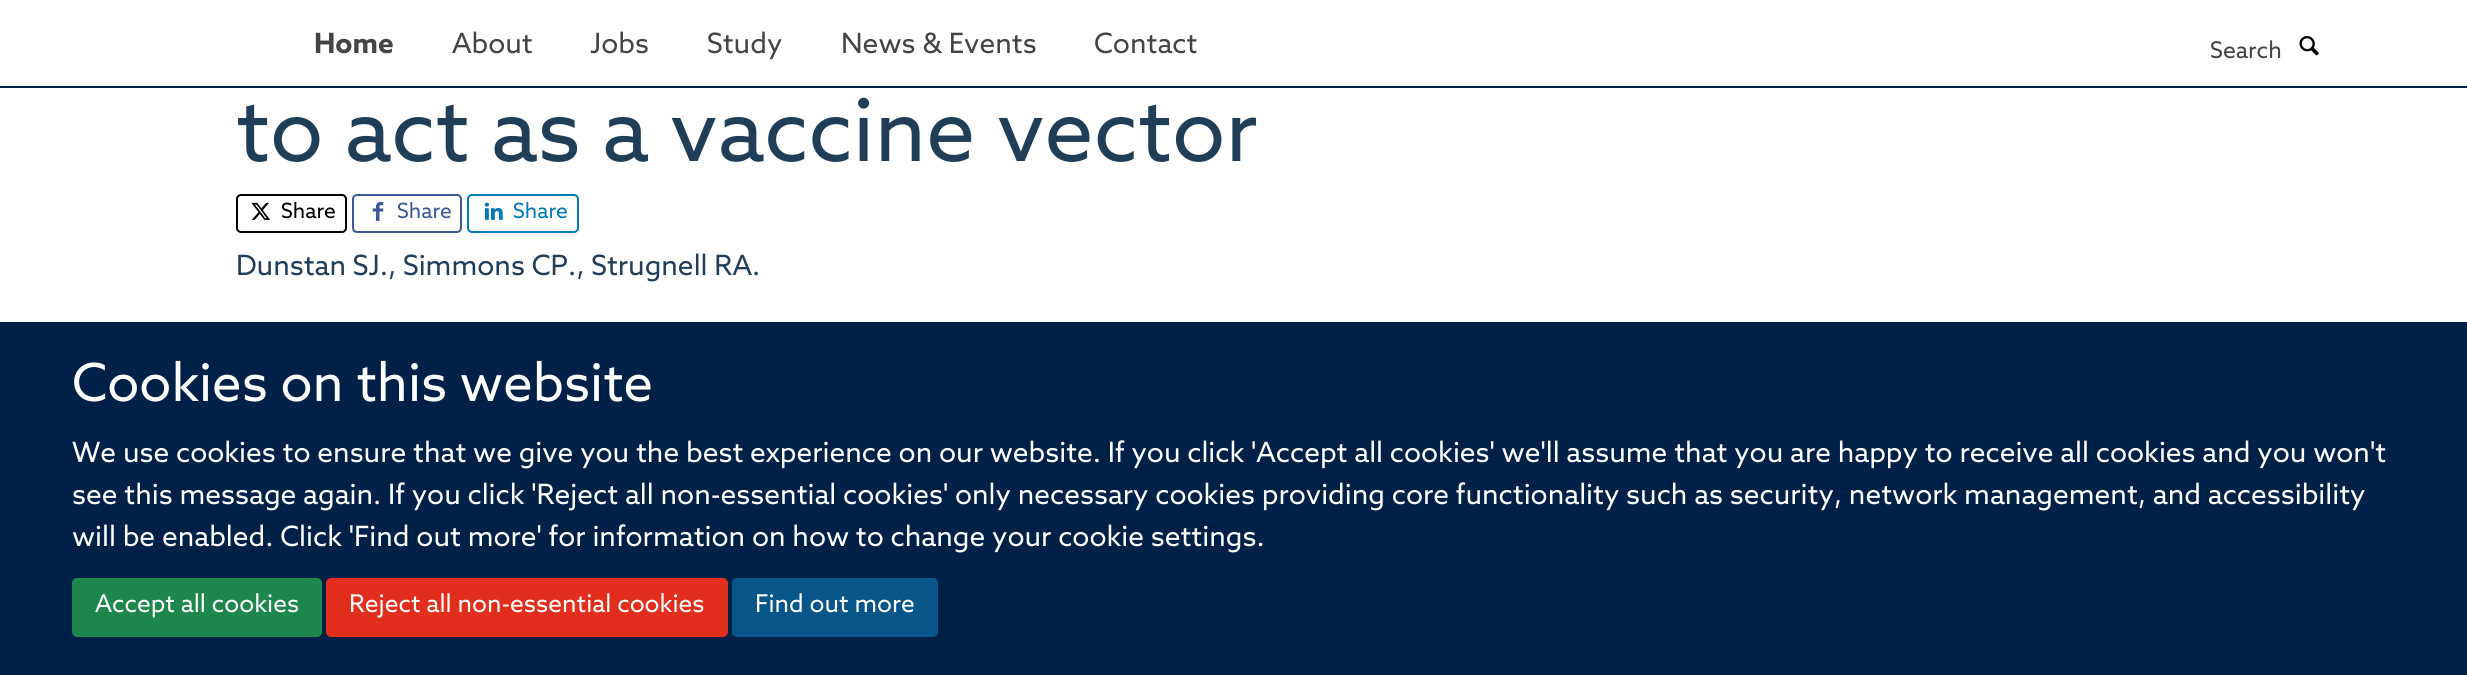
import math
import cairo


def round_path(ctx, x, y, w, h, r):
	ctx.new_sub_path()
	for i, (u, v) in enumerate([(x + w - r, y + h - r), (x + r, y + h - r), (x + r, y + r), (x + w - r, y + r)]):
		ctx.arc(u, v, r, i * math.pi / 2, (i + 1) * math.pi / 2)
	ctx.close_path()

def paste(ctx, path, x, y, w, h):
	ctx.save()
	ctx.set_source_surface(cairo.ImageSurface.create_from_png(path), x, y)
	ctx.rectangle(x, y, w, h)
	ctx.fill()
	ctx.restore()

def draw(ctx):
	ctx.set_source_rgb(1, 1, 1)
	ctx.paint()
	ctx.set_source_rgb(0, 0.129, 0.278)
	ctx.rectangle(0, 86, 2467, 2)
	ctx.fill()
	ctx.select_font_face('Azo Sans', cairo.FONT_SLANT_NORMAL, cairo.FONT_WEIGHT_BOLD)
	ctx.set_font_size(28)
	ctx.set_source_rgb(0.267, 0.267, 0.267)
	ctx.move_to(314, 53)
	ctx.show_text('Home')
	ctx.select_font_face('Azo Sans')
	for x, y, s in [
		(452, 53, 'About'),
		(590, 53, 'Jobs'),
		(707, 53, 'Study'),
		(841, 53, 'News & Events'),
		(1094, 53, 'Contact'),
	]:
		ctx.move_to(x, y)
		ctx.show_text(s)
	ctx.set_font_size(23)
	ctx.move_to(2210, 58)
	ctx.show_text('Search')
	paste(ctx, 'media/1.png', 2299, 36, 20, 20)
	ctx.set_font_size(87.5)
	ctx.set_source_rgb(0.125, 0.243, 0.345)
	ctx.move_to(236, 161)
	ctx.show_text('to act as a vaccine vector')
	round_path(ctx, 237, 195, 109, 37, 4)
	ctx.set_source_rgb(0, 0, 0)
	ctx.stroke()
	paste(ctx, 'media/2.png', 251, 202, 20, 18)
	ctx.set_font_size(21)
	ctx.move_to(281, 218)
	ctx.show_text('Share')
	round_path(ctx, 353, 195, 108, 37, 4)
	ctx.set_source_rgb(0.231, 0.349, 0.596)
	ctx.stroke()
	paste(ctx, 'media/3.png', 372, 201, 12, 20)
	ctx.move_to(397, 218)
	ctx.show_text('Share')
	round_path(ctx, 468, 195, 110, 37, 4)
	ctx.set_source_rgb(0, 0.482, 0.714)
	ctx.stroke()
	paste(ctx, 'media/4.png', 484, 202, 19, 18)
	ctx.move_to(513, 218)
	ctx.show_text('Share')
	ctx.set_font_size(28)
	ctx.set_source_rgb(0.125, 0.243, 0.345)
	ctx.move_to(236, 275)
	ctx.show_text('Dunstan SJ., Simmons CP., Strugnell RA.')
	ctx.set_source_rgb(0, 0.129, 0.278)
	ctx.rectangle(0, 322, 2467, 353)
	ctx.fill()
	ctx.set_font_size(52.5)
	ctx.set_source_rgb(1, 1, 1)
	ctx.move_to(72, 401)
	ctx.show_text('Cookies on this website')
	ctx.set_font_size(28)
	for x, y, s in [
		(72, 462, 'We use cookies to ensure that we give you the best experience on our website. If you click \'Accept all cookies\' we\'ll assume that you are happy to receive all cookies and you won\'t'),
		(72, 504, 'see this message again. If you click \'Reject all non-essential cookies\' only necessary cookies providing core functionality such as security, network management, and accessibility'),
		(72, 546, 'will be enabled. Click \'Find out more\' for information on how to change your cookie settings.'),
	]:
		ctx.move_to(x, y)
		ctx.show_text(s)
	ctx.set_source_rgb(0.118, 0.529, 0.294)
	round_path(ctx, 73, 579, 248, 57, 4)
	ctx.fill_preserve()
	ctx.stroke()
	ctx.set_font_size(24.5)
	ctx.set_source_rgb(1, 1, 1)
	ctx.move_to(95, 612)
	ctx.show_text('Accept all cookies')
	ctx.set_source_rgb(0.886, 0.18, 0.11)
	round_path(ctx, 327, 579, 400, 57, 4)
	ctx.fill_preserve()
	ctx.stroke()
	ctx.set_source_rgb(1, 1, 1)
	ctx.move_to(349, 612)
	ctx.show_text('Reject all non-essential cookies')
	ctx.set_source_rgb(0.031, 0.333, 0.537)
	round_path(ctx, 733, 579, 204, 57, 4)
	ctx.fill_preserve()
	ctx.stroke()
	ctx.set_source_rgb(1, 1, 1)
	ctx.move_to(755, 612)
	ctx.show_text('Find out more')


surface = cairo.ImageSurface(cairo.FORMAT_RGB24, 2467, 675)
ctx = cairo.Context(surface)
options = cairo.FontOptions()
options.set_hint_metrics(cairo.HINT_METRICS_OFF)
options.set_hint_style(cairo.HINT_STYLE_NONE)
ctx.set_font_options(options)
ctx.set_miter_limit(4)
draw(ctx)
surface.write_to_png('image.png')
